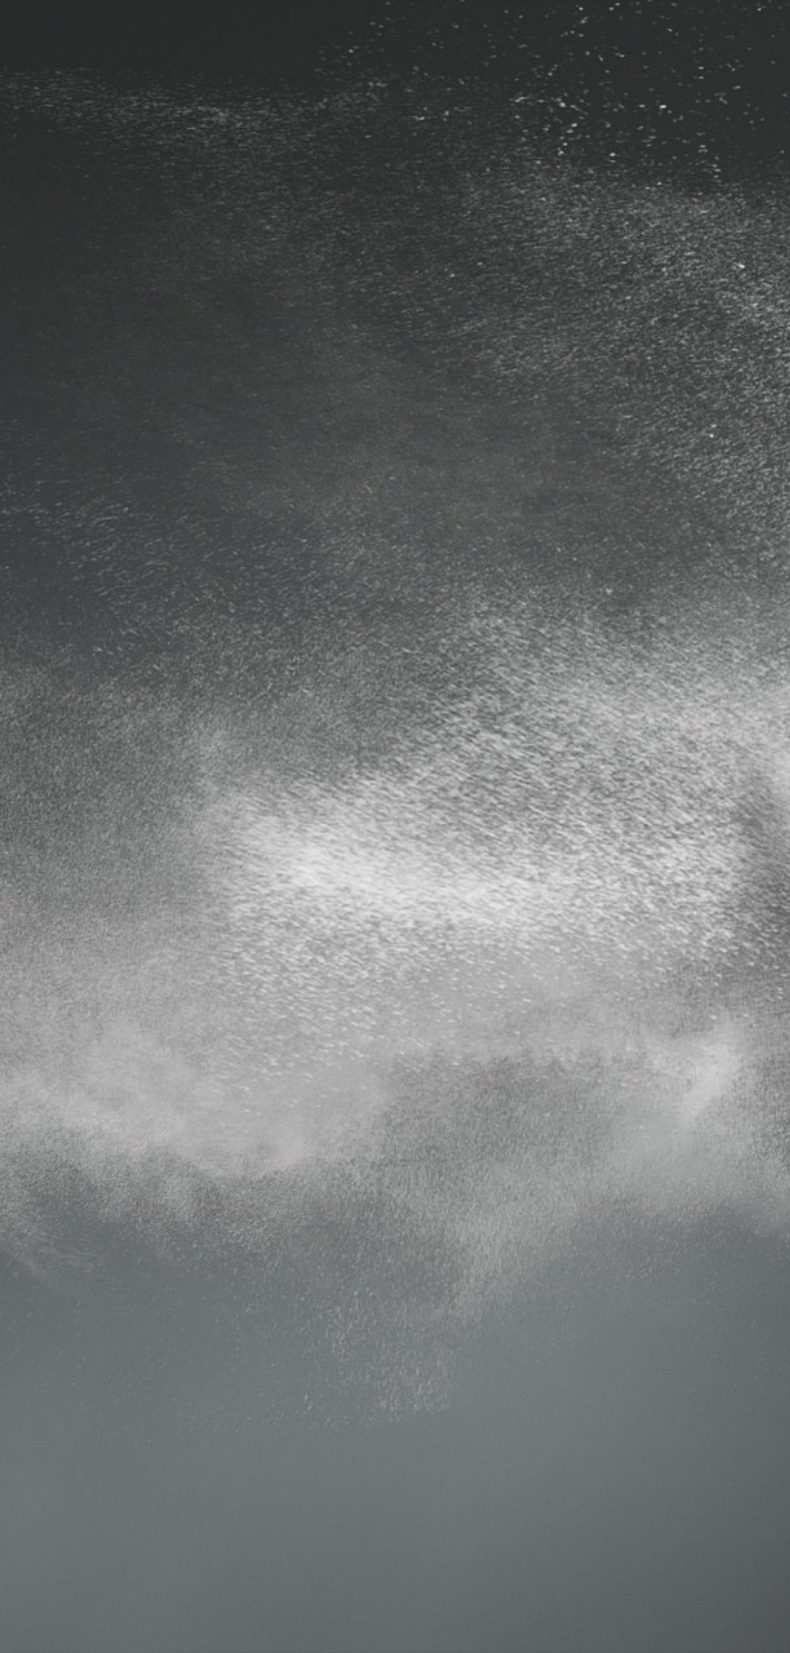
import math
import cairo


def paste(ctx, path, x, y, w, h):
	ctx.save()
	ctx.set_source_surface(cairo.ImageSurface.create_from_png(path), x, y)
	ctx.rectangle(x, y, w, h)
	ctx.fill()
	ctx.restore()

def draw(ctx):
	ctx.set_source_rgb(1, 1, 1)
	ctx.paint()
	paste(ctx, 'media/1.png', 0, 0, 790, 1653)


surface = cairo.ImageSurface(cairo.FORMAT_RGB24, 790, 1653)
ctx = cairo.Context(surface)
options = cairo.FontOptions()
options.set_hint_metrics(cairo.HINT_METRICS_OFF)
options.set_hint_style(cairo.HINT_STYLE_NONE)
ctx.set_font_options(options)
ctx.set_miter_limit(4)
draw(ctx)
surface.write_to_png('image.png')
